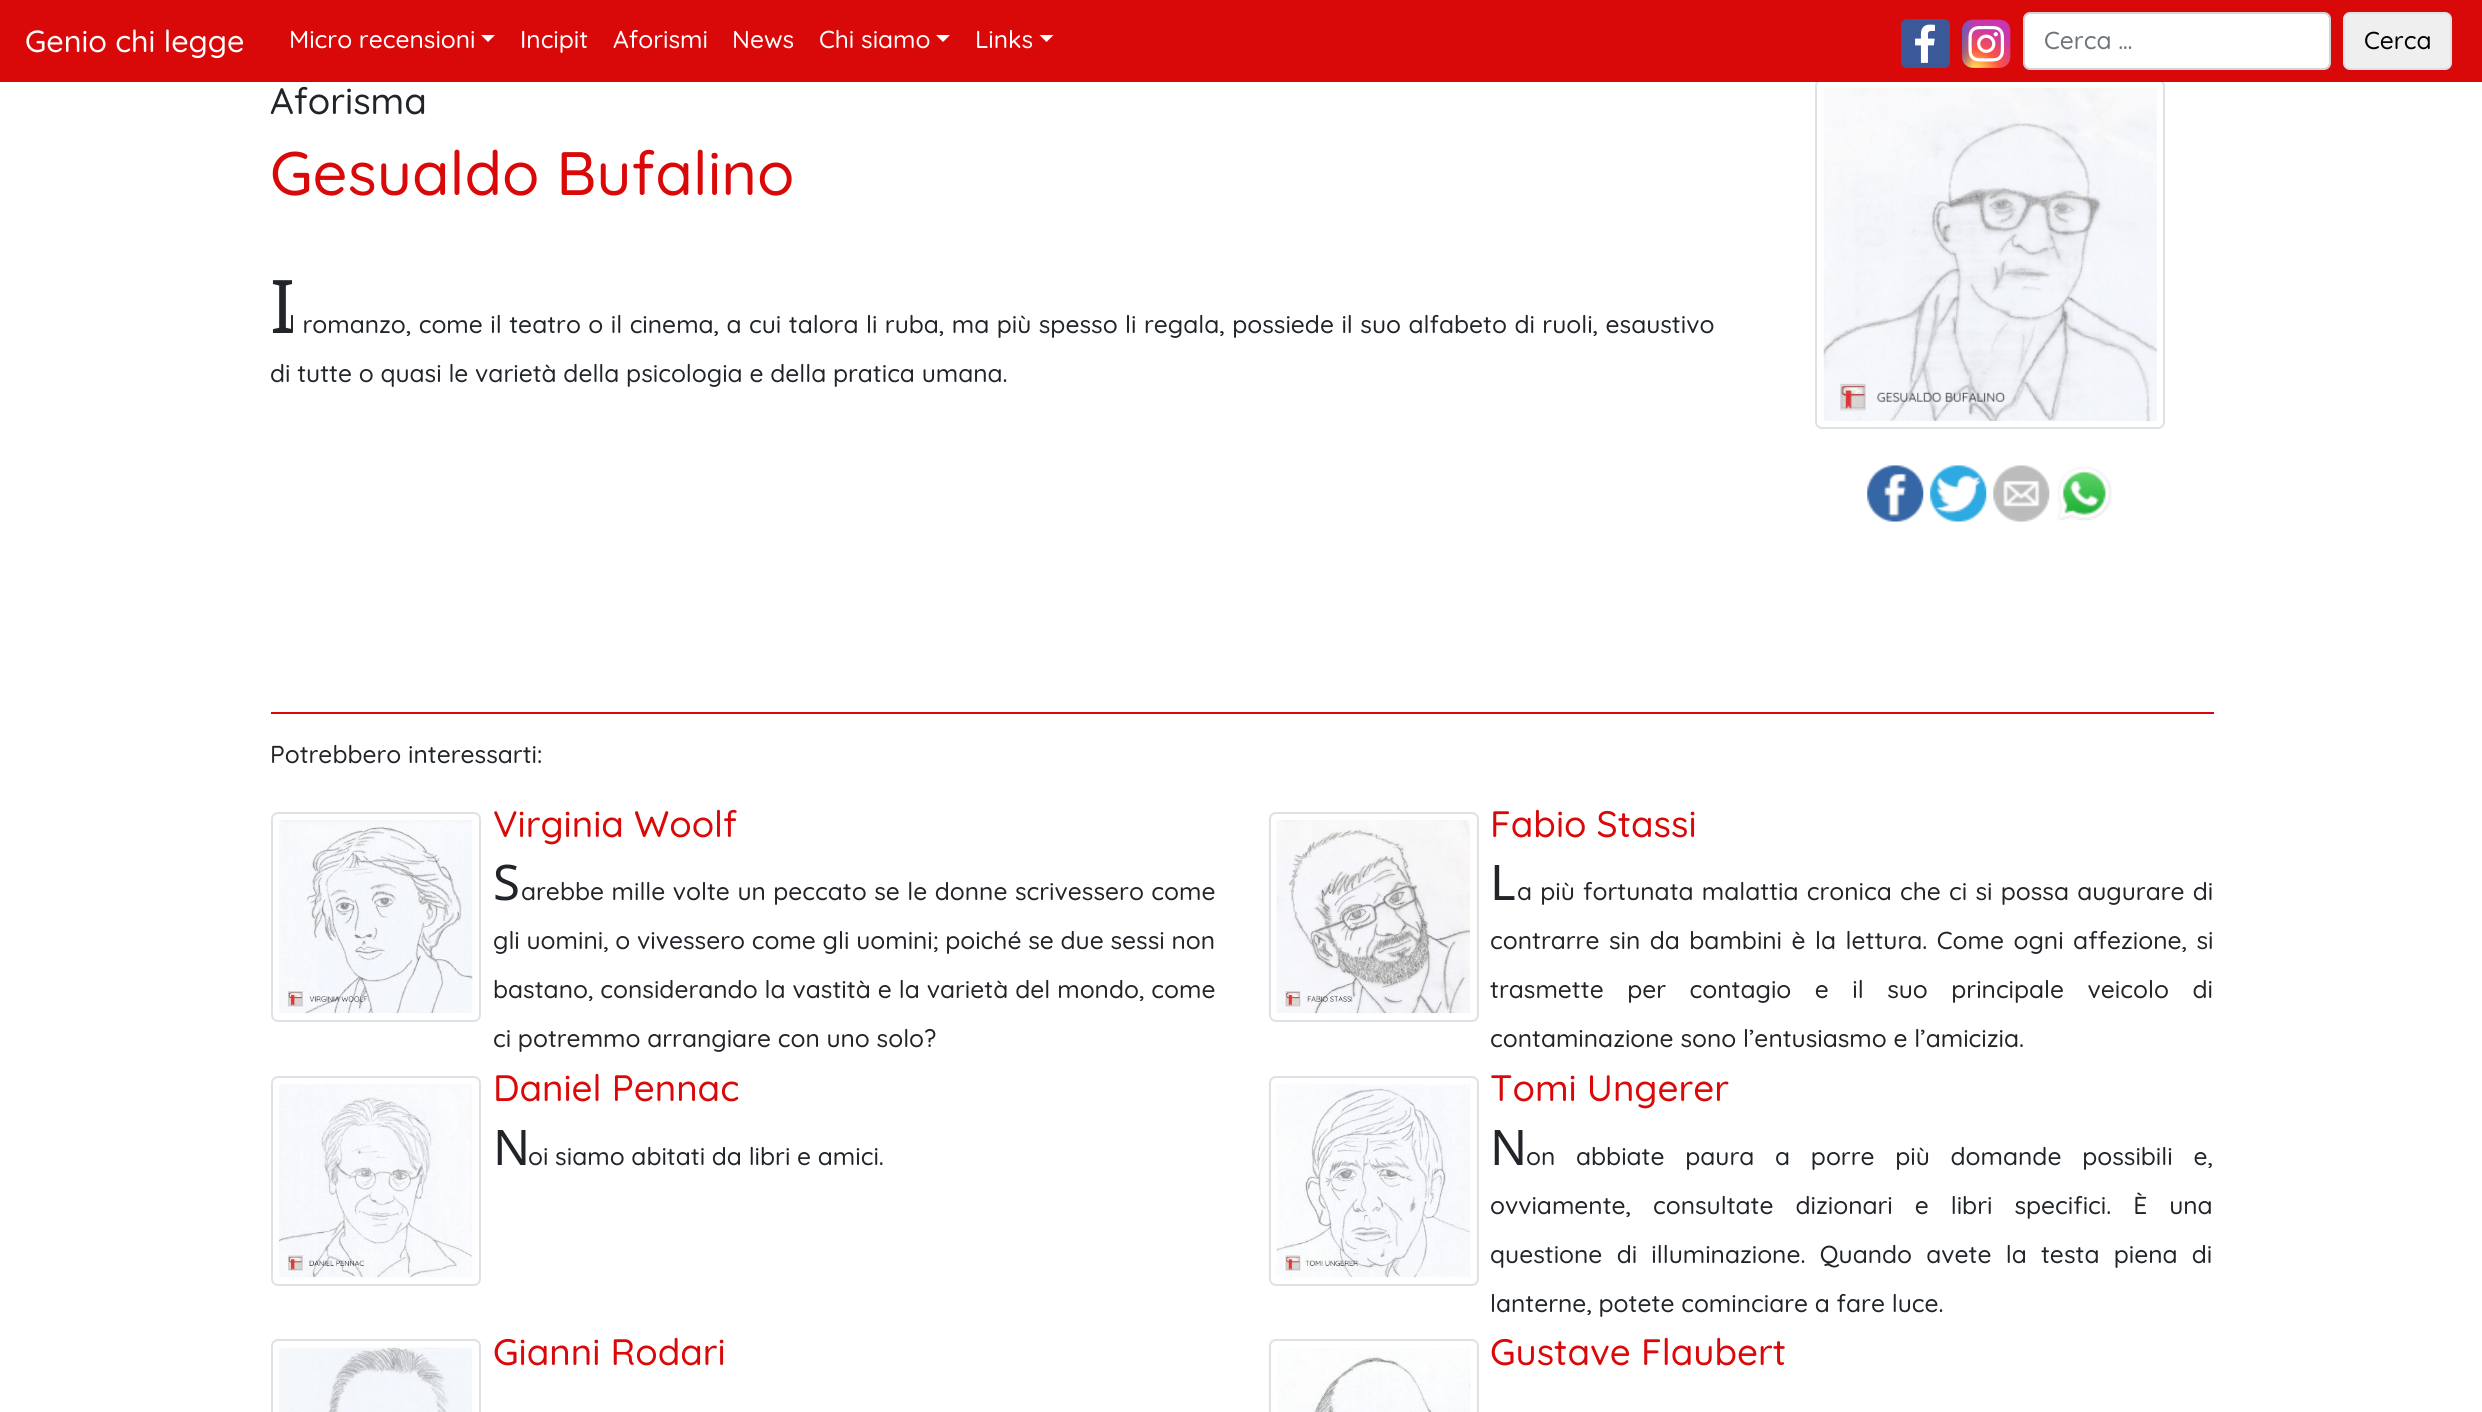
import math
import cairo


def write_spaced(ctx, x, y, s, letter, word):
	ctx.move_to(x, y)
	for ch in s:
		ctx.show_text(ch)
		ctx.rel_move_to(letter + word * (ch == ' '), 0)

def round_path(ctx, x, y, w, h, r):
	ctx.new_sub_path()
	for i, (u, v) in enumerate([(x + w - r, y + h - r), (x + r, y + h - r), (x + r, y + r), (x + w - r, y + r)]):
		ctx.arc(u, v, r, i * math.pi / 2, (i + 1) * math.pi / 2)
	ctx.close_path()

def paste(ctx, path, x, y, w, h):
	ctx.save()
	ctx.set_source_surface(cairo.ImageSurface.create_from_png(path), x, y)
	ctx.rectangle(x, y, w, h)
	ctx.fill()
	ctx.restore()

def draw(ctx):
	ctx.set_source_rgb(1, 1, 1)
	ctx.paint()
	round_path(ctx, 1816, 80, 348, 348, 6)
	ctx.set_source_rgb(0.871, 0.886, 0.902)
	ctx.stroke()
	ctx.set_source_rgb(0.855, 0.039, 0.039)
	ctx.rectangle(0, 0, 2482, 82)
	ctx.fill()
	ctx.select_font_face('Quicksand Light')
	ctx.set_font_size(30.5)
	ctx.set_source_rgb(1, 1, 1)
	ctx.move_to(25, 52)
	ctx.show_text('Genio chi legge')
	ctx.set_font_size(24.5)
	ctx.move_to(289, 48)
	ctx.show_text('Micro recensioni')
	ctx.new_path()
	ctx.move_to(481, 35)
	ctx.line_to(495, 35)
	ctx.line_to(488, 42)
	ctx.close_path()
	ctx.fill()
	for x, y, s in [
		(520, 48, 'Incipit'),
		(613, 48, 'Aforismi'),
		(732, 48, 'News'),
		(819, 48, 'Chi siamo'),
	]:
		ctx.move_to(x, y)
		ctx.show_text(s)
	ctx.new_path()
	ctx.move_to(936, 35)
	ctx.line_to(950, 35)
	ctx.line_to(943, 42)
	ctx.close_path()
	ctx.fill()
	ctx.move_to(975, 48)
	ctx.show_text('Links')
	ctx.new_path()
	ctx.move_to(1039.5, 35)
	ctx.line_to(1053.5, 35)
	ctx.line_to(1046.5, 42)
	ctx.close_path()
	ctx.fill()
	paste(ctx, 'media/1.png', 1901, 19, 49, 49)
	paste(ctx, 'media/2.png', 1962, 19, 49, 49)
	round_path(ctx, 2025, 14, 304, 54, 4)
	ctx.fill()
	round_path(ctx, 2024, 13, 306, 56, 6)
	ctx.set_source_rgb(0.808, 0.831, 0.855)
	ctx.stroke()
	ctx.set_source_rgb(0.424, 0.459, 0.49)
	ctx.move_to(2044, 49)
	ctx.show_text('Cerca …')
	ctx.set_source_rgb(0.937, 0.937, 0.937)
	round_path(ctx, 2344, 13, 107, 56, 6)
	ctx.fill_preserve()
	ctx.set_source_rgb(0.871, 0.886, 0.902)
	ctx.stroke()
	ctx.set_source_rgb(0, 0, 0)
	ctx.move_to(2364, 49)
	ctx.show_text('Cerca')
	ctx.set_font_size(36.75)
	ctx.set_source_rgb(0.129, 0.145, 0.161)
	ctx.move_to(270, 114)
	ctx.show_text('Aforisma')
	ctx.set_font_size(61.25)
	ctx.set_source_rgb(0.855, 0.039, 0.039)
	ctx.move_to(270, 195)
	ctx.show_text('Gesualdo Bufalino')
	ctx.select_font_face('Noto Sans')
	ctx.set_font_size(74)
	ctx.set_source_rgb(0.129, 0.145, 0.161)
	ctx.move_to(270, 333)
	ctx.show_text('I')
	ctx.select_font_face('Quicksand Light')
	ctx.set_font_size(24.5)
	write_spaced(ctx, 289, 333, 'l romanzo, come il teatro o il cinema, a cui talora li ruba, ma più spesso li regala, possiede il suo alfabeto di ruoli, esaustivo', 0, 0.75)
	ctx.move_to(270, 382)
	ctx.show_text('di tutte o quasi le varietà della psicologia e della pratica umana.')
	paste(ctx, 'media/3.png', 1823, 87, 334, 334)
	paste(ctx, 'media/4.png', 1867, 465, 57, 57)
	paste(ctx, 'media/5.png', 1930, 465, 57, 57)
	paste(ctx, 'media/6.png', 1993, 465, 57, 57)
	paste(ctx, 'media/7.png', 2057, 466, 55, 55)
	ctx.set_source_rgb(0.855, 0.039, 0.039)
	ctx.rectangle(271, 712, 1943, 2)
	ctx.fill()
	ctx.set_source_rgb(0.129, 0.145, 0.161)
	ctx.move_to(270, 763)
	ctx.show_text('Potrebbero interessarti:')
	round_path(ctx, 272, 813, 208, 208, 6)
	ctx.set_source_rgb(0.871, 0.886, 0.902)
	ctx.stroke()
	paste(ctx, 'media/8.png', 279, 820, 194, 194)
	ctx.set_font_size(36.75)
	ctx.set_source_rgb(0.855, 0.039, 0.039)
	ctx.move_to(493, 837)
	ctx.show_text('Virginia Woolf')
	ctx.select_font_face('Noto Sans')
	ctx.set_font_size(49)
	ctx.set_source_rgb(0.129, 0.145, 0.161)
	ctx.move_to(493, 900)
	ctx.show_text('S')
	ctx.select_font_face('Quicksand Light')
	ctx.set_font_size(24.5)
	write_spaced(ctx, 521, 900, 'arebbe mille volte un peccato se le donne scrivessero come', 0, 0.75)
	ctx.move_to(493, 949)
	ctx.show_text('gli uomini, o vivessero come gli uomini; poiché se due sessi non')
	write_spaced(ctx, 493, 998, 'bastano, considerando la vastità e la varietà del mondo, come', 0, 0.25)
	ctx.move_to(493, 1047)
	ctx.show_text('ci potremmo arrangiare con uno solo?')
	round_path(ctx, 1270, 813, 208, 208, 6)
	ctx.set_source_rgb(0.871, 0.886, 0.902)
	ctx.stroke()
	paste(ctx, 'media/9.png', 1276, 820, 194, 194)
	ctx.set_font_size(36.75)
	ctx.set_source_rgb(0.855, 0.039, 0.039)
	ctx.move_to(1490, 837)
	ctx.show_text('Fabio Stassi')
	ctx.select_font_face('Noto Sans')
	ctx.set_font_size(49)
	ctx.set_source_rgb(0.129, 0.145, 0.161)
	ctx.move_to(1490, 900)
	ctx.show_text('L')
	ctx.select_font_face('Quicksand Light')
	ctx.set_font_size(24.5)
	write_spaced(ctx, 1517, 900, 'a più fortunata malattia cronica che ci si possa augurare di', 0, 1.5)
	write_spaced(ctx, 1490, 949, 'contrarre sin da bambini è la lettura. Come ogni affezione, si', 0, 2.75)
	write_spaced(ctx, 1490, 998, 'trasmette per contagio e il suo principale veicolo di', 0, 16.75)
	ctx.move_to(1490, 1047)
	ctx.show_text('contaminazione sono l’entusiasmo e l’amicizia.')
	round_path(ctx, 272, 1077, 208, 208, 6)
	ctx.set_source_rgb(0.871, 0.886, 0.902)
	ctx.stroke()
	paste(ctx, 'media/10.png', 279, 1084, 194, 194)
	ctx.set_font_size(36.75)
	ctx.set_source_rgb(0.855, 0.039, 0.039)
	ctx.move_to(493, 1101)
	ctx.show_text('Daniel Pennac')
	ctx.select_font_face('Noto Sans')
	ctx.set_font_size(49)
	ctx.set_source_rgb(0.129, 0.145, 0.161)
	ctx.move_to(493, 1165)
	ctx.show_text('N')
	ctx.select_font_face('Quicksand Light')
	ctx.set_font_size(24.5)
	ctx.move_to(528, 1165)
	ctx.show_text('oi siamo abitati da libri e amici.')
	round_path(ctx, 1270, 1077, 208, 208, 6)
	ctx.set_source_rgb(0.871, 0.886, 0.902)
	ctx.stroke()
	paste(ctx, 'media/11.png', 1276, 1084, 194, 194)
	ctx.set_font_size(36.75)
	ctx.set_source_rgb(0.855, 0.039, 0.039)
	ctx.move_to(1490, 1101)
	ctx.show_text('Tomi Ungerer')
	ctx.select_font_face('Noto Sans')
	ctx.set_font_size(49)
	ctx.set_source_rgb(0.129, 0.145, 0.161)
	ctx.move_to(1490, 1165)
	ctx.show_text('N')
	ctx.select_font_face('Quicksand Light')
	ctx.set_font_size(24.5)
	write_spaced(ctx, 1526, 1165, 'on abbiate paura a porre più domande possibili e,', 0, 14)
	write_spaced(ctx, 1490, 1214, 'ovviamente, consultate dizionari e libri specifici. È una', 0, 15.25)
	write_spaced(ctx, 1490, 1263, 'questione di illuminazione. Quando avete la testa piena di', 0, 7.5)
	ctx.move_to(1490, 1312)
	ctx.show_text('lanterne, potete cominciare a fare luce.')
	round_path(ctx, 272, 1340, 208, 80, 6)
	ctx.set_source_rgb(0.871, 0.886, 0.902)
	ctx.stroke()
	paste(ctx, 'media/12.png', 279, 1347, 193, 65)
	ctx.set_font_size(36.75)
	ctx.set_source_rgb(0.855, 0.039, 0.039)
	ctx.move_to(493, 1365)
	ctx.show_text('Gianni Rodari')
	round_path(ctx, 1270, 1340, 208, 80, 6)
	ctx.set_source_rgb(0.871, 0.886, 0.902)
	ctx.stroke()
	paste(ctx, 'media/13.png', 1277, 1348, 193, 64)
	ctx.set_source_rgb(0.855, 0.039, 0.039)
	ctx.move_to(1490, 1365)
	ctx.show_text('Gustave Flaubert')


surface = cairo.ImageSurface(cairo.FORMAT_RGB24, 2482, 1412)
ctx = cairo.Context(surface)
options = cairo.FontOptions()
options.set_hint_metrics(cairo.HINT_METRICS_OFF)
options.set_hint_style(cairo.HINT_STYLE_NONE)
ctx.set_font_options(options)
ctx.set_miter_limit(4)
draw(ctx)
surface.write_to_png('image.png')
